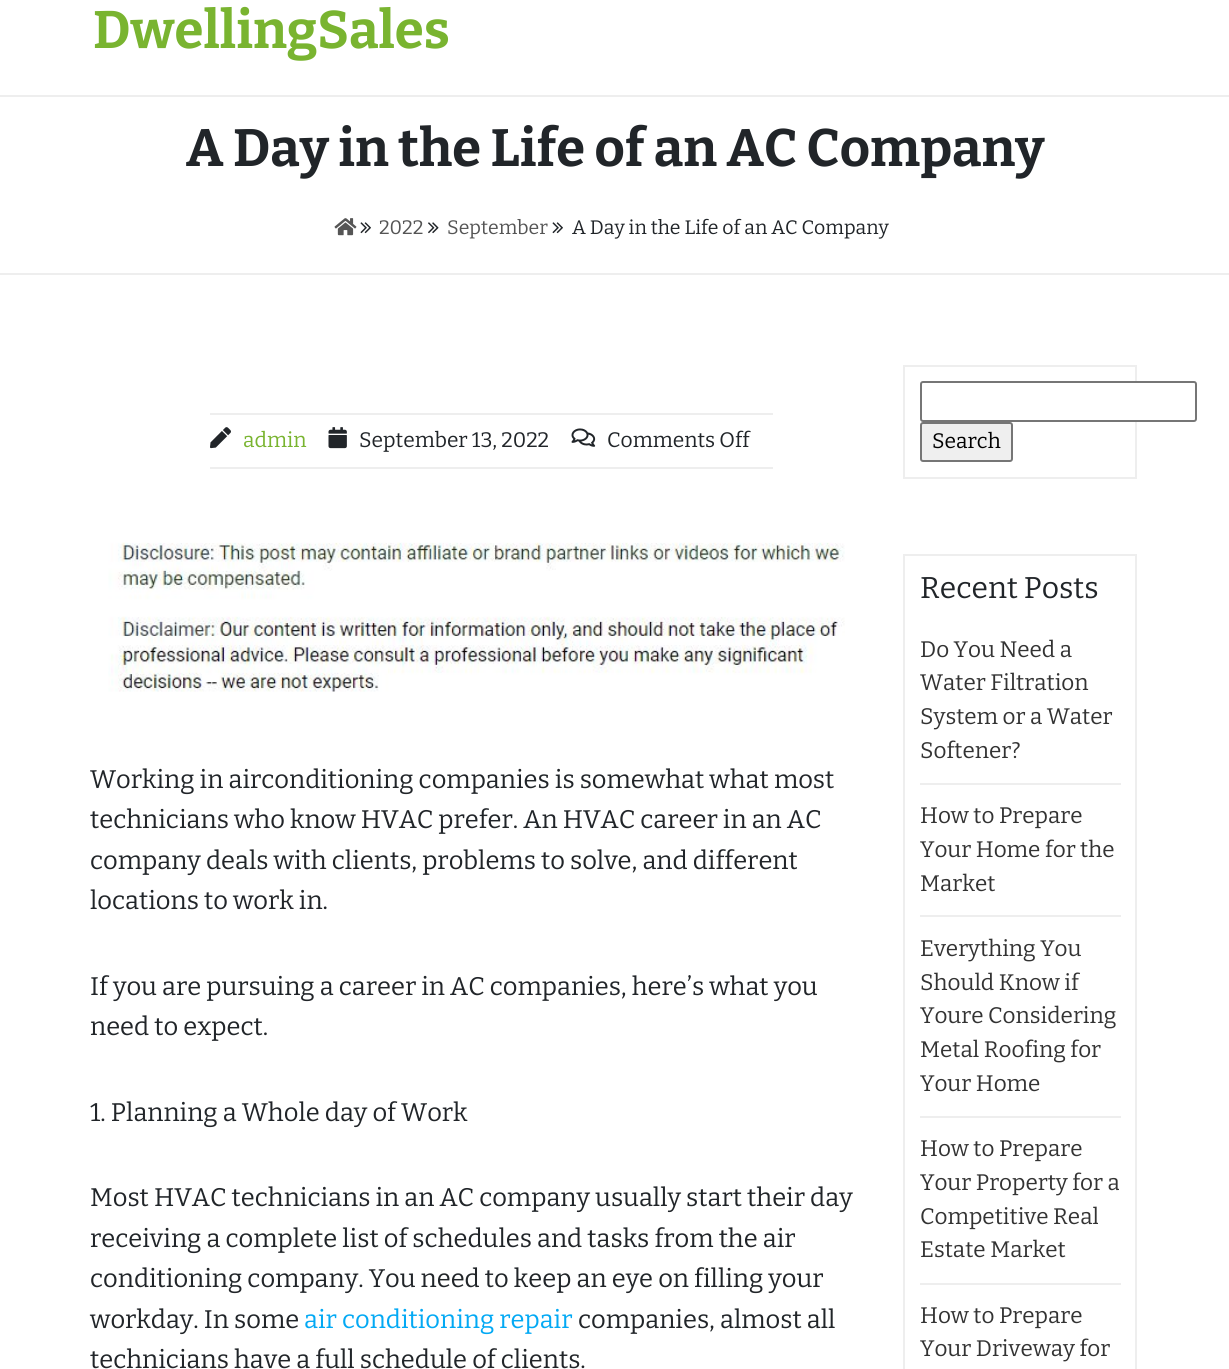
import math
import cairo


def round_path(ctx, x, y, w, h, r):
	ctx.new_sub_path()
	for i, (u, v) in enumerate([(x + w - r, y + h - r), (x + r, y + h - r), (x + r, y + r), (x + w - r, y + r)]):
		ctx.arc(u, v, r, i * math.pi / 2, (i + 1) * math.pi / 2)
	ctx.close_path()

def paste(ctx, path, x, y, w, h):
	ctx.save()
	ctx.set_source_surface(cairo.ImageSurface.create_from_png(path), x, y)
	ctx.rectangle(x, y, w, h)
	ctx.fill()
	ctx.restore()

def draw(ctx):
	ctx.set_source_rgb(1, 1, 1)
	ctx.paint()
	ctx.select_font_face('Bitter', cairo.FONT_SLANT_NORMAL, cairo.FONT_WEIGHT_BOLD)
	ctx.set_font_size(52.75)
	ctx.set_source_rgb(0.475, 0.706, 0.188)
	ctx.move_to(93, 48)
	ctx.show_text('DwellingSales')
	ctx.set_source_rgb(0.933, 0.933, 0.933)
	ctx.rectangle(0, 95, 1229, 2)
	ctx.fill()
	ctx.rectangle(0, 273, 1229, 2)
	ctx.fill()
	ctx.set_font_size(52.5)
	ctx.set_source_rgb(0.129, 0.145, 0.161)
	ctx.move_to(186, 166)
	ctx.show_text('A Day in the Life of an AC Company')
	paste(ctx, 'media/1.png', 334, 218, 23, 18)
	paste(ctx, 'media/2.png', 360, 222, 11, 12)
	ctx.select_font_face('Bitter')
	ctx.set_font_size(19.5)
	ctx.set_source_rgb(0.333, 0.333, 0.333)
	ctx.move_to(379, 234)
	ctx.show_text('2022')
	paste(ctx, 'media/3.png', 428, 222, 11, 12)
	ctx.move_to(447, 234)
	ctx.show_text('September')
	paste(ctx, 'media/2.png', 552, 222, 11, 12)
	ctx.set_source_rgb(0.129, 0.145, 0.161)
	ctx.move_to(572, 234)
	ctx.show_text('A Day in the Life of an AC Company')
	ctx.set_source_rgb(0.933, 0.933, 0.933)
	ctx.rectangle(210, 413, 563, 2)
	ctx.fill()
	ctx.rectangle(210, 467, 563, 2)
	ctx.fill()
	paste(ctx, 'media/4.png', 210, 427, 21, 22)
	ctx.set_font_size(21)
	ctx.set_source_rgb(0.475, 0.706, 0.188)
	ctx.move_to(243, 447)
	ctx.show_text('admin')
	paste(ctx, 'media/5.png', 328, 427, 19, 22)
	ctx.set_source_rgb(0.129, 0.145, 0.161)
	ctx.move_to(359, 447)
	ctx.show_text('September 13, 2022')
	paste(ctx, 'media/6.png', 571, 428, 25, 19)
	ctx.move_to(607, 447)
	ctx.show_text('Comments Off')
	paste(ctx, 'media/7.png', 108, 542, 737, 150)
	ctx.set_font_size(25.5)
	for x, y, s in [
		(90, 788, 'Working in airconditioning companies is somewhat what most'),
		(90, 828, 'technicians who know HVAC prefer. An HVAC career in an AC'),
		(90, 869, 'company deals with clients, problems to solve, and different'),
		(90, 909, 'locations to work in.'),
		(90, 995, 'If you are pursuing a career in AC companies, here’s what you'),
		(90, 1035, 'need to expect.'),
		(90, 1121, '1. Planning a Whole day of Work'),
		(90, 1206, 'Most HVAC technicians in an AC company usually start their day'),
		(90, 1247, 'receiving a complete list of schedules and tasks from the air'),
		(90, 1287, 'conditioning company. You need to keep an eye on filling your'),
		(90, 1328, 'workday. In some'),
	]:
		ctx.move_to(x, y)
		ctx.show_text(s)
	ctx.set_source_rgb(0.012, 0.663, 0.957)
	ctx.move_to(304, 1328)
	ctx.show_text('air conditioning repair')
	ctx.set_source_rgb(0.129, 0.145, 0.161)
	ctx.move_to(578, 1328)
	ctx.show_text('companies, almost all')
	ctx.move_to(90, 1368)
	ctx.show_text('technicians have a full schedule of clients.')
	ctx.rectangle(904, 366, 232, 112)
	ctx.set_source_rgb(0.933, 0.933, 0.933)
	ctx.stroke()
	ctx.set_source_rgb(1, 1, 1)
	round_path(ctx, 921, 382, 275, 39, 2)
	ctx.fill_preserve()
	ctx.set_source_rgb(0.463, 0.463, 0.463)
	ctx.stroke()
	ctx.set_source_rgb(0.937, 0.937, 0.937)
	round_path(ctx, 921, 423, 91, 38, 2)
	ctx.fill_preserve()
	ctx.set_source_rgb(0.463, 0.463, 0.463)
	ctx.stroke()
	ctx.set_font_size(21)
	ctx.set_source_rgb(0, 0, 0)
	ctx.move_to(932, 448)
	ctx.show_text('Search')
	ctx.rectangle(904, 555, 232, 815)
	ctx.set_source_rgb(0.933, 0.933, 0.933)
	ctx.stroke()
	ctx.set_font_size(30)
	ctx.set_source_rgb(0.129, 0.145, 0.161)
	ctx.move_to(920, 598)
	ctx.show_text('Recent Posts')
	ctx.set_source_rgb(0.933, 0.933, 0.933)
	ctx.rectangle(920, 783, 201, 2)
	ctx.fill()
	ctx.set_font_size(22.5)
	ctx.set_source_rgb(0.2, 0.2, 0.2)
	for x, y, s in [
		(920, 657, 'Do You Need a'),
		(920, 690, 'Water Filtration'),
		(920, 724, 'System or a Water'),
		(920, 758, 'Softener?'),
	]:
		ctx.move_to(x, y)
		ctx.show_text(s)
	ctx.set_source_rgb(0.933, 0.933, 0.933)
	ctx.rectangle(920, 915, 201, 2)
	ctx.fill()
	ctx.set_source_rgb(0.2, 0.2, 0.2)
	for x, y, s in [
		(920, 823, 'How to Prepare'),
		(920, 857, 'Your Home for the'),
		(920, 891, 'Market'),
	]:
		ctx.move_to(x, y)
		ctx.show_text(s)
	ctx.set_source_rgb(0.933, 0.933, 0.933)
	ctx.rectangle(920, 1116, 201, 2)
	ctx.fill()
	ctx.set_source_rgb(0.2, 0.2, 0.2)
	for x, y, s in [
		(920, 956, 'Everything You'),
		(920, 990, 'Should Know if'),
		(920, 1023, 'Youre Considering'),
		(920, 1057, 'Metal Roofing for'),
		(920, 1091, 'Your Home'),
	]:
		ctx.move_to(x, y)
		ctx.show_text(s)
	ctx.set_source_rgb(0.933, 0.933, 0.933)
	ctx.rectangle(920, 1283, 201, 2)
	ctx.fill()
	ctx.set_source_rgb(0.2, 0.2, 0.2)
	for x, y, s in [
		(920, 1156, 'How to Prepare'),
		(920, 1190, 'Your Property for a'),
		(920, 1224, 'Competitive Real'),
		(920, 1257, 'Estate Market'),
		(920, 1323, 'How to Prepare'),
		(920, 1356, 'Your Driveway for'),
	]:
		ctx.move_to(x, y)
		ctx.show_text(s)


surface = cairo.ImageSurface(cairo.FORMAT_RGB24, 1229, 1369)
ctx = cairo.Context(surface)
options = cairo.FontOptions()
options.set_hint_metrics(cairo.HINT_METRICS_OFF)
options.set_hint_style(cairo.HINT_STYLE_NONE)
ctx.set_font_options(options)
ctx.set_miter_limit(4)
draw(ctx)
surface.write_to_png('image.png')
